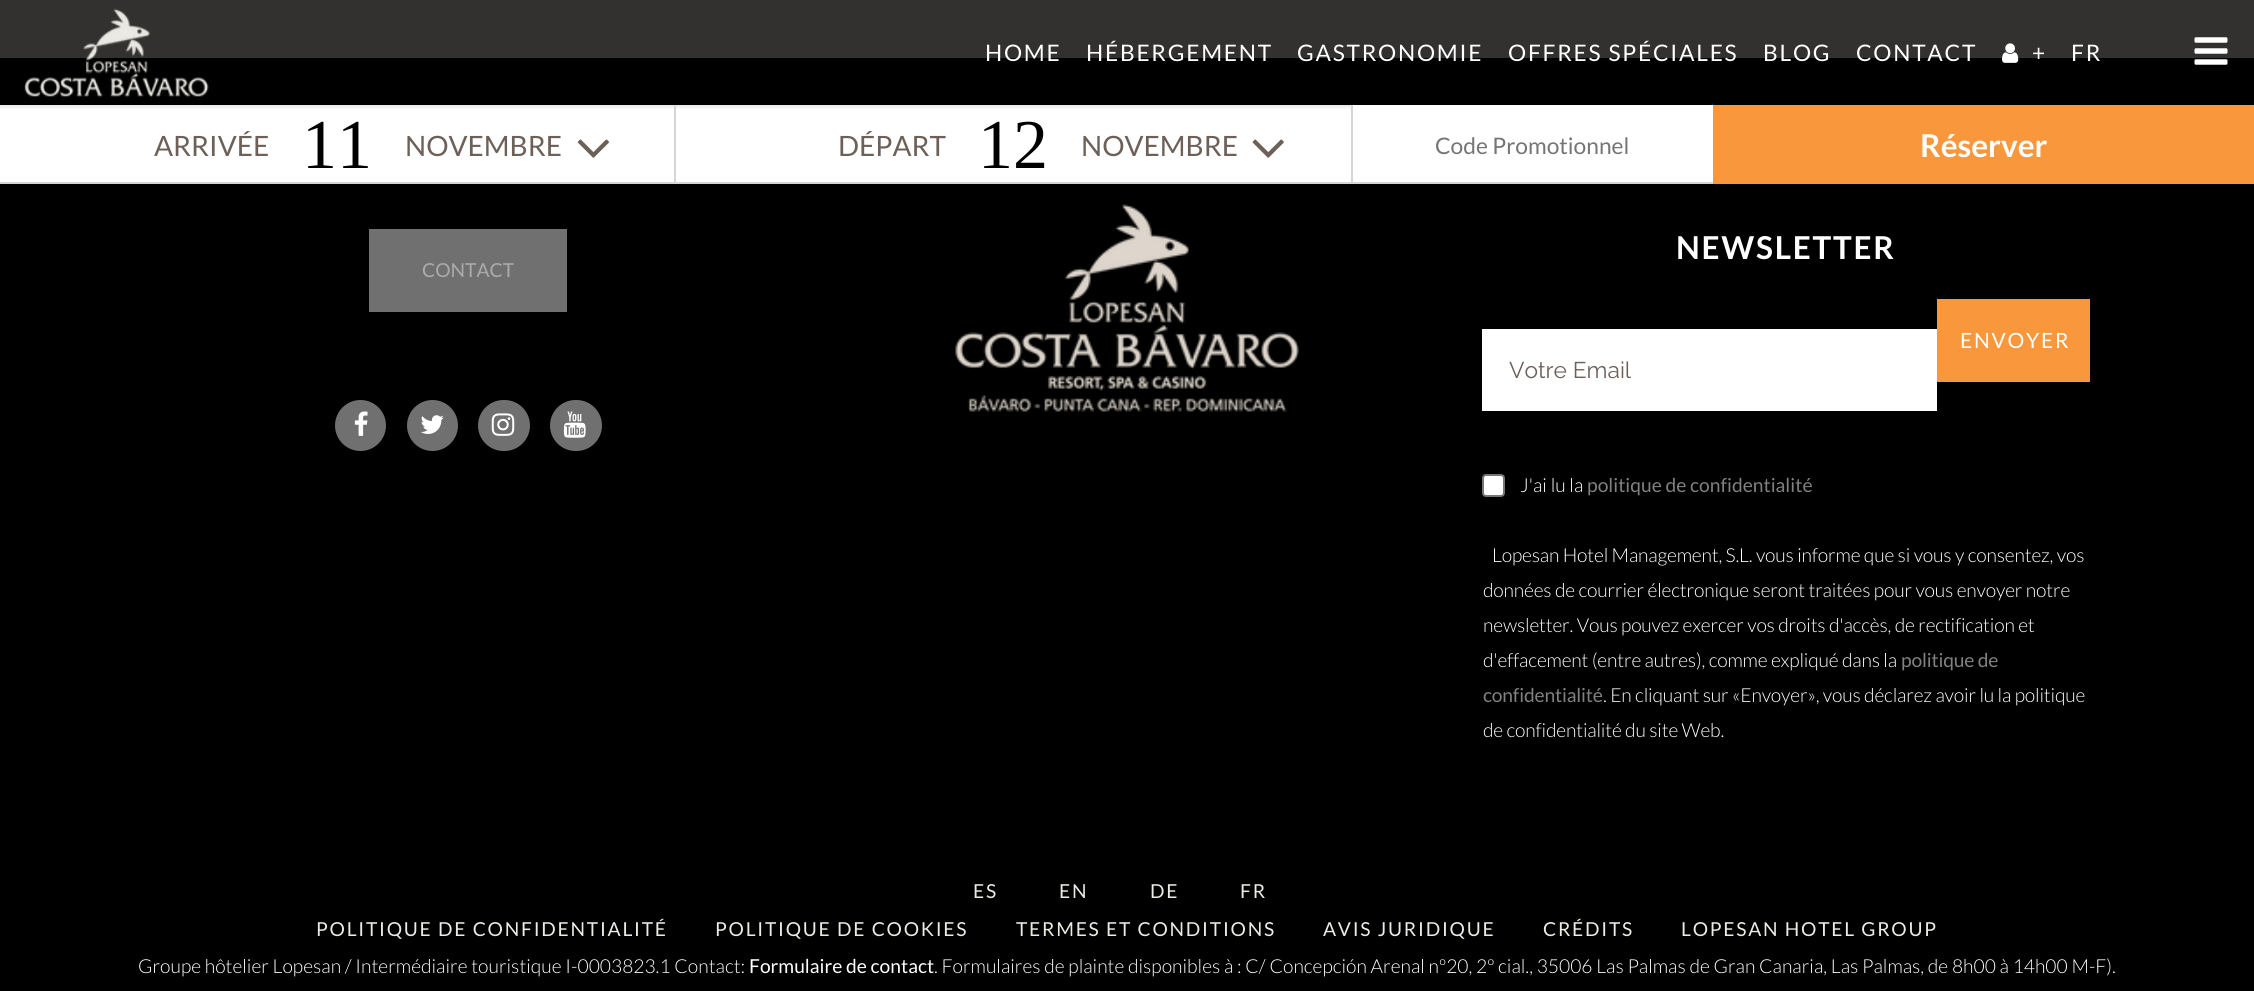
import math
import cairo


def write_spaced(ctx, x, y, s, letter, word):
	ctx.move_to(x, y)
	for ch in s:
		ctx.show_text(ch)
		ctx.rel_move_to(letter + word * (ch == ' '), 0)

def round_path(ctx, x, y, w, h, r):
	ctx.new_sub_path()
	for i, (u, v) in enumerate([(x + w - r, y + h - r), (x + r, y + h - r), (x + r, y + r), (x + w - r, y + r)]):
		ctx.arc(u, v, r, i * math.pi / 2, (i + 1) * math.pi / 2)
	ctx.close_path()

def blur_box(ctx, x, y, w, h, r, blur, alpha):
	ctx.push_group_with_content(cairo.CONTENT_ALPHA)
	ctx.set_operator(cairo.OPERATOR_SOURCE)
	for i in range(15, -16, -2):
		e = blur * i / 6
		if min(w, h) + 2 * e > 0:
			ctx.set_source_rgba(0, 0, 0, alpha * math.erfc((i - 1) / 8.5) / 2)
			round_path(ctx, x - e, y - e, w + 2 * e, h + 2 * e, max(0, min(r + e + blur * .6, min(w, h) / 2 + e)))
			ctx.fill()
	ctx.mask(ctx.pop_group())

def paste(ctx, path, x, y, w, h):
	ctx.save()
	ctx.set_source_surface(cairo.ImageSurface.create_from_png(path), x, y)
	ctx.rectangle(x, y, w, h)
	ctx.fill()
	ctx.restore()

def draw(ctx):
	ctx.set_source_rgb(0, 0, 0)
	ctx.paint()
	ctx.set_source_rgb(0.196, 0.192, 0.188)
	ctx.rectangle(0, 0, 2254, 58)
	ctx.fill()
	ctx.set_source_rgb(1, 1, 1)
	ctx.rectangle(0, 105, 1351, 77)
	ctx.fill()
	ctx.save()
	ctx.rectangle(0, 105, 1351, 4)
	ctx.clip()
	ctx.set_source_rgb(0, 0, 0)
	blur_box(ctx, 0, 2, 2254, 105, 0, 2.5, 0.11)
	ctx.restore()
	paste(ctx, 'media/1.png', 24, 8, 185, 89)
	ctx.select_font_face('Lato')
	ctx.set_font_size(22.75)
	for x, y, s in [
		(985, 61, 'HOME'),
		(1086, 61, 'HÉBERGEMENT'),
		(1297, 61, 'GASTRONOMIE'),
		(1508, 61, 'OFFRES SPÉCIALES'),
		(1763, 61, 'BLOG'),
		(1856, 61, 'CONTACT'),
	]:
		write_spaced(ctx, x, y, s, 1.75, 0)
	paste(ctx, 'media/2.png', 2002, 43, 17, 20)
	write_spaced(ctx, 2032, 61, '+', 1.75, 0)
	write_spaced(ctx, 2071, 61, 'FR', 1.75, 0)
	paste(ctx, 'media/3.png', 2194, 37, 34, 28)
	ctx.set_source_rgb(0.839, 0.839, 0.839)
	ctx.rectangle(674, 105, 2, 79)
	ctx.fill()
	ctx.rectangle(0, 182, 676, 2)
	ctx.fill()
	ctx.set_font_size(28)
	ctx.set_source_rgb(0.424, 0.376, 0.345)
	ctx.move_to(154, 156)
	ctx.show_text('ARRIVÉE')
	ctx.select_font_face('Liberation Serif')
	ctx.set_font_size(70)
	ctx.set_source_rgb(0, 0, 0)
	ctx.move_to(302, 168)
	ctx.show_text('11')
	ctx.select_font_face('Lato')
	ctx.set_font_size(28)
	ctx.set_source_rgb(0.424, 0.376, 0.345)
	ctx.move_to(405, 156)
	ctx.show_text('NOVEMBRE')
	paste(ctx, 'media/4.png', 577, 139, 32, 19)
	ctx.set_source_rgb(0.839, 0.839, 0.839)
	ctx.rectangle(1351, 105, 2, 79)
	ctx.fill()
	ctx.rectangle(676, 182, 1037, 2)
	ctx.fill()
	ctx.set_source_rgb(0.424, 0.376, 0.345)
	ctx.move_to(838, 156)
	ctx.show_text('DÉPART')
	ctx.select_font_face('Liberation Serif')
	ctx.set_font_size(70)
	ctx.set_source_rgb(0, 0, 0)
	ctx.move_to(978, 168)
	ctx.show_text('12')
	ctx.select_font_face('Lato')
	ctx.set_font_size(28)
	ctx.set_source_rgb(0.424, 0.376, 0.345)
	ctx.move_to(1081, 156)
	ctx.show_text('NOVEMBRE')
	paste(ctx, 'media/5.png', 1252, 139, 32, 19)
	ctx.set_source_rgb(1, 1, 1)
	ctx.rectangle(1353, 105, 360, 77)
	ctx.fill()
	ctx.set_font_size(22.75)
	ctx.set_source_rgb(0.459, 0.459, 0.459)
	ctx.move_to(1435, 154)
	ctx.show_text('Code Promotionnel')
	ctx.set_source_rgb(0.976, 0.592, 0.239)
	ctx.rectangle(1713, 105, 541, 79)
	ctx.fill()
	ctx.select_font_face('Lato', cairo.FONT_SLANT_NORMAL, cairo.FONT_WEIGHT_BOLD)
	ctx.set_font_size(31.5)
	ctx.set_source_rgb(1, 1, 1)
	ctx.move_to(1920, 157)
	ctx.show_text('Réserver')
	ctx.set_source_rgb(0.439, 0.439, 0.439)
	ctx.rectangle(369, 229, 198, 83)
	ctx.fill()
	ctx.select_font_face('Lato')
	ctx.set_font_size(19.25)
	ctx.set_source_rgb(0.671, 0.671, 0.671)
	ctx.move_to(422, 277)
	ctx.show_text('CONTACT')
	ctx.set_source_rgb(0.439, 0.439, 0.439)
	ctx.new_path()
	ctx.arc(360.5, 425.5, 27.5, 0, 2 * math.pi)
	ctx.fill_preserve()
	ctx.set_source_rgb(0, 0, 0)
	ctx.set_line_width(4)
	ctx.stroke()
	paste(ctx, 'media/6.png', 354, 411, 14, 25)
	ctx.set_source_rgb(0.439, 0.439, 0.439)
	ctx.arc(432.5, 425.5, 27.5, 0, 2 * math.pi)
	ctx.fill_preserve()
	ctx.set_source_rgb(0, 0, 0)
	ctx.stroke()
	paste(ctx, 'media/7.png', 420, 415, 24, 19)
	ctx.set_source_rgb(0.439, 0.439, 0.439)
	round_path(ctx, 476, 398, 56, 55, 27.5)
	ctx.fill_preserve()
	ctx.set_source_rgb(0, 0, 0)
	ctx.stroke()
	paste(ctx, 'media/8.png', 491, 413, 24, 23)
	ctx.set_source_rgb(0.439, 0.439, 0.439)
	round_path(ctx, 548, 398, 56, 55, 27.5)
	ctx.fill_preserve()
	ctx.set_source_rgb(0, 0, 0)
	ctx.stroke()
	paste(ctx, 'media/9.png', 563, 411, 23, 27)
	paste(ctx, 'media/10.png', 955, 204, 344, 208)
	ctx.select_font_face('Lato', cairo.FONT_SLANT_NORMAL, cairo.FONT_WEIGHT_BOLD)
	ctx.set_font_size(31.5)
	ctx.set_source_rgb(1, 1, 1)
	write_spaced(ctx, 1676, 259, 'NEWSLETTER', 1.75, 0)
	ctx.set_source_rgb(0.976, 0.592, 0.239)
	ctx.rectangle(1939, 301, 151, 81)
	ctx.rectangle(1937, 299, 153, 2)
	ctx.rectangle(1937, 299, 2, 83)
	ctx.fill()
	ctx.select_font_face('Lato')
	ctx.set_font_size(21)
	ctx.set_source_rgb(1, 1, 1)
	write_spaced(ctx, 1960, 348, 'ENVOYER', 1.75, 0)
	ctx.rectangle(1482, 329, 455, 82)
	ctx.fill()
	ctx.select_font_face('Raleway Thin')
	ctx.set_font_size(22.75)
	ctx.set_source_rgb(0.424, 0.376, 0.345)
	ctx.move_to(1509, 378)
	ctx.show_text('Votre Email')
	ctx.set_source_rgb(1, 1, 1)
	round_path(ctx, 1483, 475, 21, 21, 3)
	ctx.fill_preserve()
	ctx.set_source_rgb(0.463, 0.463, 0.463)
	ctx.set_line_width(2)
	ctx.stroke()
	ctx.select_font_face('Lato Light')
	ctx.set_font_size(19.25)
	ctx.set_source_rgb(1, 1, 1)
	ctx.move_to(1520, 492)
	ctx.show_text('J\'ai lu la')
	ctx.select_font_face('Lato')
	ctx.set_source_rgb(0.506, 0.506, 0.506)
	ctx.move_to(1587, 492)
	ctx.show_text('politique de confidentialité')
	ctx.select_font_face('Lato Light')
	ctx.set_source_rgb(1, 1, 1)
	for x, y, s in [
		(1492, 562, 'Lopesan Hotel Management, S.L. vous informe que si vous y consentez, vos'),
		(1483, 597, 'données de courrier électronique seront traitées pour vous envoyer notre'),
		(1483, 632, 'newsletter. Vous pouvez exercer vos droits d\'accès, de rectification et'),
		(1483, 667, 'd\'effacement (entre autres), comme expliqué dans la'),
	]:
		write_spaced(ctx, x, y, s, -0.18, 0)
	ctx.select_font_face('Lato')
	ctx.set_source_rgb(0.506, 0.506, 0.506)
	write_spaced(ctx, 1901, 667, 'politique de', -0.18, 0)
	write_spaced(ctx, 1483, 702, 'confidentialité', -0.18, 0)
	ctx.select_font_face('Lato Light')
	ctx.set_source_rgb(1, 1, 1)
	write_spaced(ctx, 1603, 702, '. En cliquant sur «Envoyer», vous déclarez avoir lu la politique', -0.18, 0)
	write_spaced(ctx, 1483, 737, 'de confidentialité du site Web.', -0.18, 0)
	ctx.select_font_face('Lato')
	ctx.set_source_rgb(0.925, 0.918, 0.894)
	for x, y, s in [
		(973, 898, 'ES'),
		(1059, 898, 'EN'),
		(1150, 898, 'DE'),
		(1240, 898, 'FR'),
		(316, 936, 'POLITIQUE DE CONFIDENTIALITÉ'),
		(715, 936, 'POLITIQUE DE COOKIES'),
		(1016, 936, 'TERMES ET CONDITIONS'),
		(1323, 936, 'AVIS JURIDIQUE'),
		(1543, 936, 'CRÉDITS'),
		(1681, 936, 'LOPESAN HOTEL GROUP'),
	]:
		write_spaced(ctx, x, y, s, 1.75, 0)
	ctx.select_font_face('Lato Light')
	ctx.set_source_rgb(1, 1, 1)
	ctx.move_to(138, 973)
	ctx.show_text('Groupe hôtelier Lopesan / Intermédiaire touristique I-0003823.1 Contact:')
	ctx.select_font_face('Lato')
	ctx.move_to(749, 973)
	ctx.show_text('Formulaire de contact')
	ctx.select_font_face('Lato Light')
	ctx.move_to(934, 973)
	ctx.show_text('. Formulaires de plainte disponibles à : C/ Concepción Arenal nº20, 2º cial., 35006 Las Palmas de Gran Canaria, Las Palmas, de 8h00 à 14h00 M-F).')


surface = cairo.ImageSurface(cairo.FORMAT_RGB24, 2254, 991)
ctx = cairo.Context(surface)
options = cairo.FontOptions()
options.set_hint_metrics(cairo.HINT_METRICS_OFF)
options.set_hint_style(cairo.HINT_STYLE_NONE)
ctx.set_font_options(options)
ctx.set_miter_limit(4)
draw(ctx)
surface.write_to_png('image.png')
